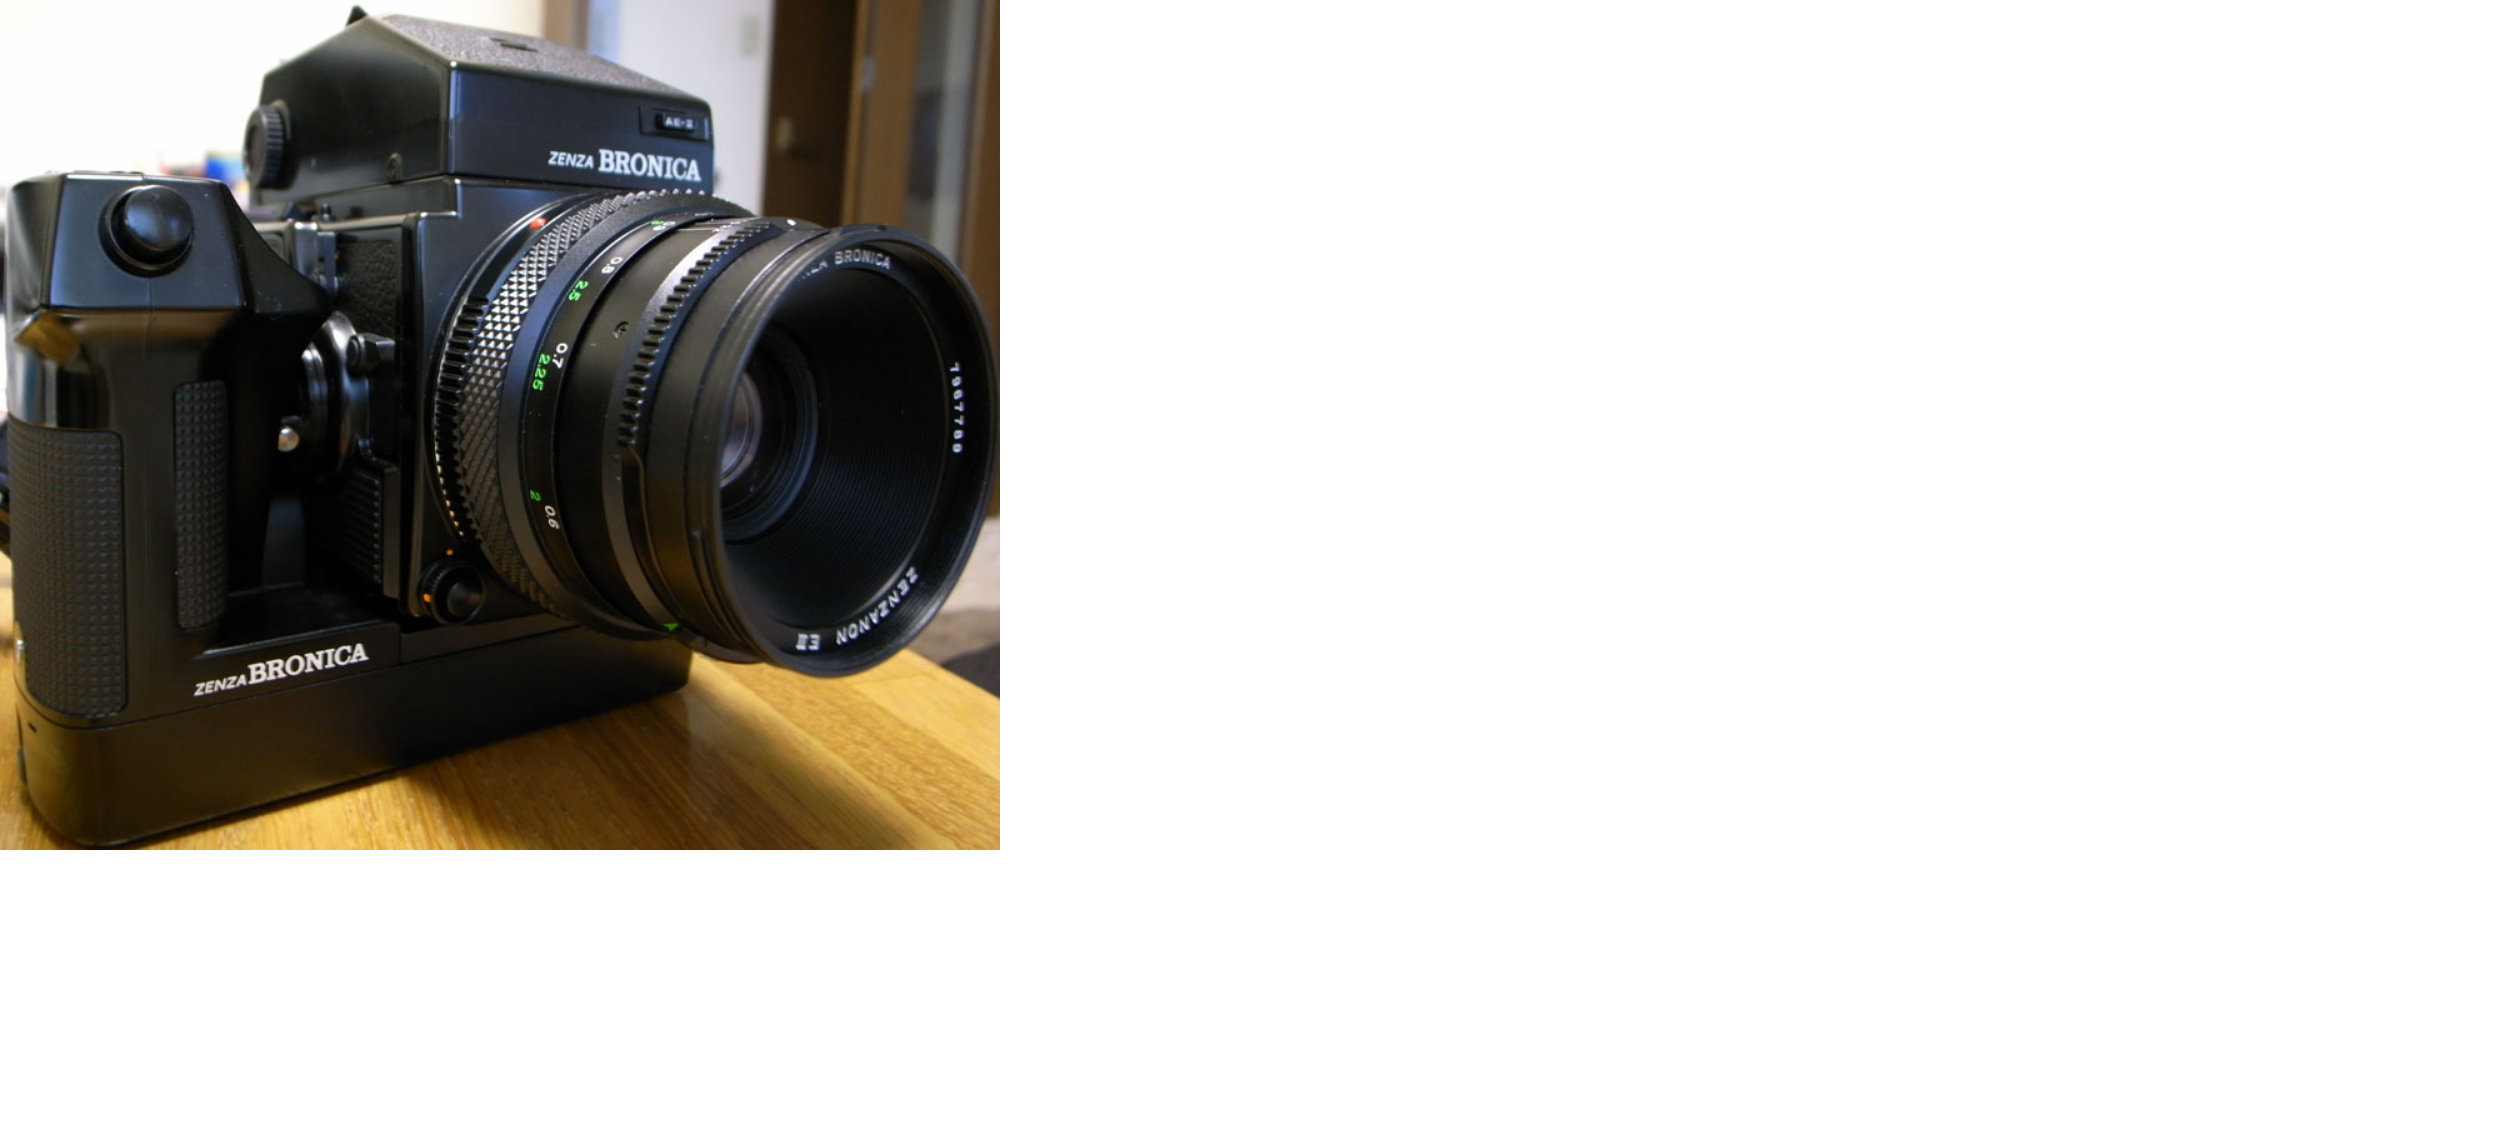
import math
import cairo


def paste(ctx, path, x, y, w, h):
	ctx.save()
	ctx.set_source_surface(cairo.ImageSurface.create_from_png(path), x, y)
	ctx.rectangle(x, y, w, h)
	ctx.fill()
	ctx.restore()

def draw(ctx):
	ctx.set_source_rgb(1, 1, 1)
	ctx.paint()
	paste(ctx, 'media/1.png', 0, 0, 1000, 850)


surface = cairo.ImageSurface(cairo.FORMAT_RGB24, 2493, 1126)
ctx = cairo.Context(surface)
options = cairo.FontOptions()
options.set_hint_metrics(cairo.HINT_METRICS_OFF)
options.set_hint_style(cairo.HINT_STYLE_NONE)
ctx.set_font_options(options)
ctx.set_miter_limit(4)
draw(ctx)
surface.write_to_png('image.png')
